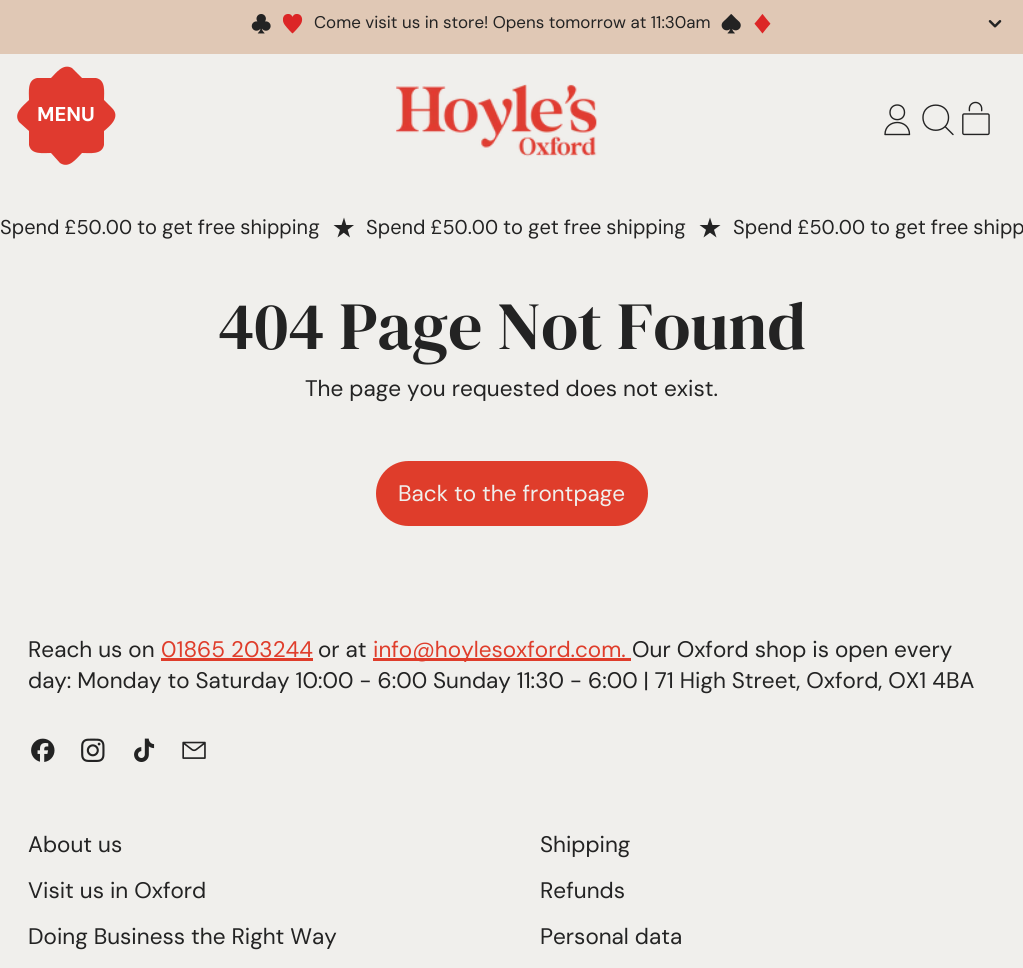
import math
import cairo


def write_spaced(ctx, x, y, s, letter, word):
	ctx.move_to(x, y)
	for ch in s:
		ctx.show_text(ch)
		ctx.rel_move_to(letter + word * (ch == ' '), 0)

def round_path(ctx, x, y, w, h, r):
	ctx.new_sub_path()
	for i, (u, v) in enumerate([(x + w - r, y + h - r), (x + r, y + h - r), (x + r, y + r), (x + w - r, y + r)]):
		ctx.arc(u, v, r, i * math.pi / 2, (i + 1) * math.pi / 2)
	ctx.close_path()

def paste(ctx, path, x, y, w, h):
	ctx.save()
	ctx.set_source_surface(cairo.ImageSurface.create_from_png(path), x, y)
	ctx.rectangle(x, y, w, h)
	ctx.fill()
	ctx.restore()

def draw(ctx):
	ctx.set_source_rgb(0.941, 0.937, 0.922)
	ctx.paint()
	ctx.set_source_rgb(0.878, 0.784, 0.71)
	ctx.rectangle(0, 0, 1023, 54)
	ctx.fill()
	paste(ctx, 'media/1.png', 251, 14, 20, 20)
	paste(ctx, 'media/2.png', 283, 14, 20, 20)
	ctx.select_font_face('DM Sans')
	ctx.set_font_size(16.9)
	ctx.set_source_rgb(0.137, 0.137, 0.137)
	ctx.move_to(314, 28)
	ctx.show_text('Come visit us in store! Opens tomorrow at 11:30am')
	paste(ctx, 'media/3.png', 721, 14, 20, 20)
	paste(ctx, 'media/4.png', 754, 14, 17, 20)
	paste(ctx, 'media/5.png', 988, 20, 14, 8)
	ctx.set_source_rgb(0.878, 0.227, 0.184)
	ctx.new_path()
	ctx.move_to(112, 108)
	ctx.line_to(104, 100)
	ctx.curve_to(104, 92, 106, 80, 96, 78)
	ctx.line_to(82, 78)
	ctx.line_to(72, 68)
	ctx.curve_to(63, 63, 56, 73, 51, 78)
	ctx.line_to(37, 78)
	ctx.curve_to(27, 80, 29, 92, 29, 100)
	ctx.curve_to(23, 106, 13, 113, 19, 122)
	ctx.line_to(29, 131)
	ctx.line_to(29, 145)
	ctx.curve_to(31, 155, 43, 153, 51, 153)
	ctx.line_to(60, 163)
	ctx.curve_to(69, 169, 76, 159, 82, 153)
	ctx.curve_to(90, 153, 102, 155, 104, 145)
	ctx.line_to(104, 131)
	ctx.curve_to(110, 126, 121, 117, 112, 108)
	ctx.close_path()
	ctx.fill()
	ctx.select_font_face('DM Sans', cairo.FONT_SLANT_NORMAL, cairo.FONT_WEIGHT_BOLD)
	ctx.set_font_size(20)
	ctx.set_source_rgb(1, 1, 1)
	ctx.move_to(37, 121)
	ctx.show_text('MENU')
	paste(ctx, 'media/6.png', 396, 84, 201, 73)
	ctx.new_path()
	ctx.move_to(890, 112.5)
	ctx.curve_to(890, 122, 904.5, 122, 904.5, 112.5)
	ctx.curve_to(904.5, 102.5, 890, 102.5, 890, 112.5)
	ctx.close_path()
	ctx.move_to(885, 134.5)
	ctx.curve_to(885, 118.5, 909.5, 118.5, 909.5, 134.5)
	ctx.close_path()
	ctx.set_source_rgb(0.137, 0.137, 0.137)
	ctx.set_line_width(1.4)
	ctx.set_line_cap(cairo.LINE_CAP_ROUND)
	ctx.set_line_join(cairo.LINE_JOIN_ROUND)
	ctx.stroke()
	ctx.new_path()
	ctx.move_to(923, 117.5)
	ctx.curve_to(923, 134.5, 948.5, 134.5, 948.5, 117.5)
	ctx.curve_to(948.5, 101, 923, 101, 923, 117.5)
	ctx.close_path()
	ctx.move_to(953, 134.5)
	ctx.line_to(945.5, 127)
	ctx.stroke()
	paste(ctx, 'media/7.png', 962, 101, 28, 35)
	ctx.select_font_face('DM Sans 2')
	write_spaced(ctx, 0, 234, 'Spend £50.00 to get free shipping', 0, -0.5)
	ctx.new_path()
	ctx.move_to(337.5, 237.5)
	ctx.line_to(344, 217.5)
	ctx.line_to(350, 237.5)
	ctx.line_to(333.5, 225)
	ctx.line_to(354, 225)
	ctx.fill()
	write_spaced(ctx, 366, 234, 'Spend £50.00 to get free shipping', 0, -0.5)
	ctx.new_path()
	ctx.move_to(703.5, 237.5)
	ctx.line_to(710, 217.5)
	ctx.line_to(716.5, 237.5)
	ctx.line_to(699.5, 225)
	ctx.line_to(720.5, 225)
	ctx.fill()
	write_spaced(ctx, 733, 234, 'Spend £50.00 to get free shipp', 0, -0.5)
	ctx.select_font_face('DM Serif Display')
	ctx.set_font_size(67.5)
	ctx.move_to(218, 349)
	ctx.show_text('404 Page Not Found')
	ctx.select_font_face('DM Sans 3')
	ctx.set_font_size(22.5)
	ctx.move_to(305, 396)
	ctx.show_text('The page you requested does not exist.')
	ctx.set_source_rgb(0.875, 0.239, 0.169)
	round_path(ctx, 376, 461, 272, 65, 32.5)
	ctx.fill()
	ctx.set_source_rgb(0.941, 0.937, 0.922)
	ctx.move_to(398, 501)
	ctx.show_text('Back to the frontpage')
	ctx.set_source_rgb(0.137, 0.137, 0.137)
	ctx.move_to(28, 657)
	ctx.show_text('Reach us on')
	ctx.set_source_rgb(0.875, 0.239, 0.169)
	ctx.move_to(161, 657)
	ctx.show_text('01865 203244')
	ctx.rectangle(161, 658, 152, 3)
	ctx.fill()
	ctx.set_source_rgb(0.137, 0.137, 0.137)
	ctx.move_to(318, 657)
	ctx.show_text('or at')
	ctx.set_source_rgb(0.875, 0.239, 0.169)
	ctx.rectangle(373, 658, 258, 3)
	ctx.fill()
	ctx.move_to(373, 657)
	ctx.show_text('info@hoylesoxford.com.')
	ctx.set_source_rgb(0.137, 0.137, 0.137)
	ctx.move_to(632, 657)
	ctx.show_text('Our Oxford shop is open every')
	ctx.move_to(28, 688)
	ctx.show_text('day: Monday to Saturday 10:00 - 6:00 Sunday 11:30 - 6:00 | 71 High Street, Oxford, OX1 4BA')
	paste(ctx, 'media/8.png', 31, 738, 24, 24)
	paste(ctx, 'media/9.png', 81, 738, 24, 24)
	paste(ctx, 'media/10.png', 134, 738, 21, 24)
	paste(ctx, 'media/11.png', 182, 741, 24, 18)
	for x, y, s in [
		(28, 852, 'About us'),
		(28, 898, 'Visit us in Oxford'),
		(28, 944, 'Doing Business the Right Way'),
		(540, 852, 'Shipping'),
		(540, 898, 'Refunds'),
		(540, 944, 'Personal data'),
	]:
		ctx.move_to(x, y)
		ctx.show_text(s)


surface = cairo.ImageSurface(cairo.FORMAT_RGB24, 1023, 968)
ctx = cairo.Context(surface)
options = cairo.FontOptions()
options.set_hint_metrics(cairo.HINT_METRICS_OFF)
options.set_hint_style(cairo.HINT_STYLE_NONE)
ctx.set_font_options(options)
ctx.set_miter_limit(4)
draw(ctx)
surface.write_to_png('image.png')
